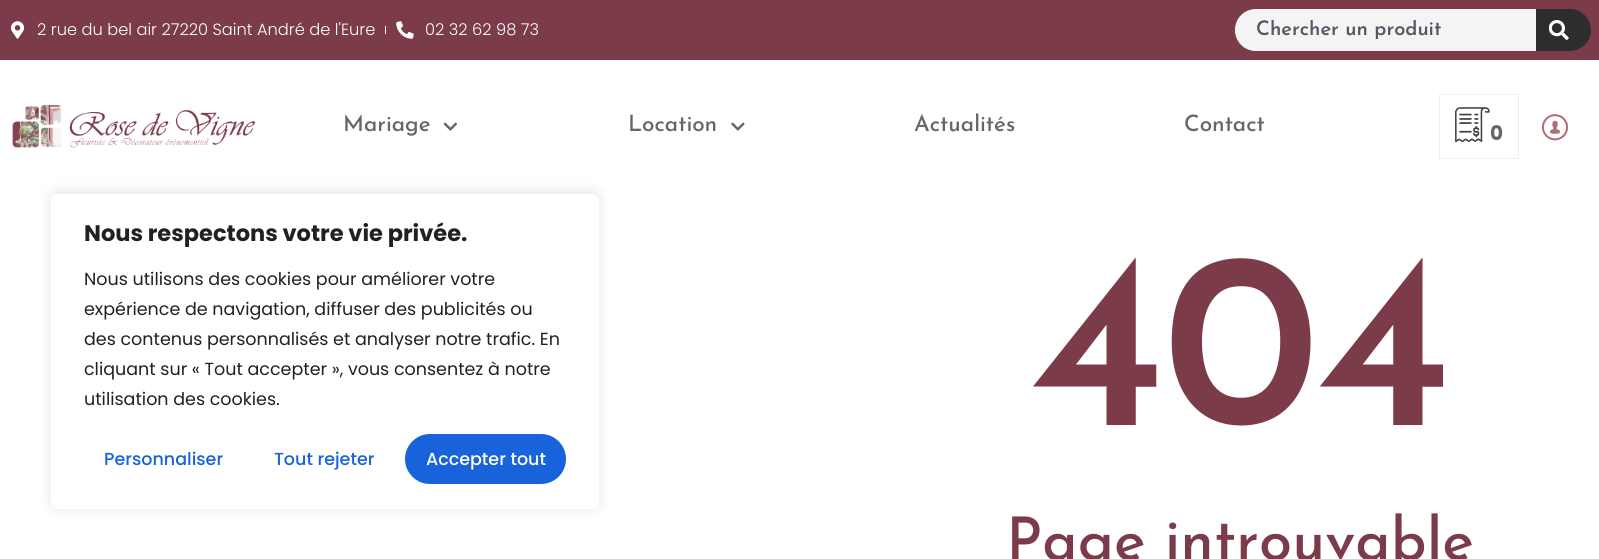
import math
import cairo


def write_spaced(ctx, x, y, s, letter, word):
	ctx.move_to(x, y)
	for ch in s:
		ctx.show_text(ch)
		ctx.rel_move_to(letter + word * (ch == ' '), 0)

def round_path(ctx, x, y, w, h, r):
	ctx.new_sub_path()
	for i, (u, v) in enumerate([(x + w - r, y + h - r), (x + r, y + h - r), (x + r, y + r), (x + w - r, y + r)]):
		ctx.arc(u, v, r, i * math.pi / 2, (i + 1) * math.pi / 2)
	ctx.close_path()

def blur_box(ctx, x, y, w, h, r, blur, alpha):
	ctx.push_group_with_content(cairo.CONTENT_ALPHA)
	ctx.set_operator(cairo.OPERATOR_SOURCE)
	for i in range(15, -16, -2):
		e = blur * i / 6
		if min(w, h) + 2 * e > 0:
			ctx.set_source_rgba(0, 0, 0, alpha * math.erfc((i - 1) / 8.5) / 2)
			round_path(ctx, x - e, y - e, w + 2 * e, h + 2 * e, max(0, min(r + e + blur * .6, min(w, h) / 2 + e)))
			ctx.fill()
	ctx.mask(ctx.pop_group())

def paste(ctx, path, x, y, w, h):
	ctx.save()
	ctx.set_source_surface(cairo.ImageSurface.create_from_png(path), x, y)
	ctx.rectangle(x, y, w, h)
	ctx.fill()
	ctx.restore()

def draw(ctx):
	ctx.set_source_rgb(1, 1, 1)
	ctx.paint()
	ctx.set_source_rgb(0.482, 0.231, 0.286)
	ctx.rectangle(0, 0, 1599, 60)
	ctx.fill()
	paste(ctx, 'media/1.png', 10, 21, 15, 18)
	ctx.select_font_face('Poppins Light')
	ctx.set_font_size(16.25)
	ctx.set_source_rgb(1, 1, 1)
	ctx.move_to(37, 35)
	ctx.show_text('2 rue du bel air 27220 Saint André de l\'Eure')
	ctx.rectangle(385, 26, 1, 8)
	ctx.fill()
	paste(ctx, 'media/2.png', 396, 21, 18, 18)
	ctx.move_to(425, 35)
	ctx.show_text('02 32 62 98 73')
	ctx.set_source_rgb(0.957, 0.957, 0.957)
	ctx.new_path()
	ctx.move_to(1256, 9.5)
	ctx.line_to(1535.5, 9.5)
	ctx.line_to(1535.5, 50.5)
	ctx.line_to(1256, 50.5)
	ctx.curve_to(1244.5, 50.5, 1235.5, 41.5, 1235.5, 30)
	ctx.curve_to(1235.5, 18.5, 1244.5, 9.5, 1256, 9.5)
	ctx.close_path()
	ctx.fill_preserve()
	ctx.set_line_width(1)
	ctx.stroke()
	ctx.save()
	ctx.rectangle(1256, 20, 243, 20)
	ctx.clip()
	ctx.select_font_face('Josefin Sans SemiBold')
	ctx.set_font_size(20)
	ctx.set_source_rgb(0.318, 0.349, 0.384)
	ctx.move_to(1256, 35)
	ctx.show_text('Chercher un produit')
	ctx.restore()
	ctx.set_source_rgb(0.176, 0.176, 0.176)
	ctx.new_path()
	ctx.move_to(1536, 9)
	ctx.line_to(1570, 9)
	ctx.curve_to(1581.5, 9, 1591, 18.5, 1591, 30)
	ctx.curve_to(1591, 41.5, 1581.5, 51, 1570, 51)
	ctx.line_to(1536, 51)
	ctx.close_path()
	ctx.fill()
	paste(ctx, 'media/3.png', 1549, 20, 20, 20)
	paste(ctx, 'media/4.png', 12, 105, 243, 43)
	ctx.select_font_face('Josefin Sans Medium')
	ctx.set_font_size(22.5)
	ctx.set_source_rgb(0.4, 0.4, 0.4)
	ctx.move_to(343, 131)
	ctx.show_text('Mariage')
	paste(ctx, 'media/5.png', 443, 122, 14, 9)
	ctx.move_to(628, 131)
	ctx.show_text('Location')
	paste(ctx, 'media/6.png', 731, 122, 14, 9)
	ctx.move_to(914, 131)
	ctx.show_text('Actualités')
	ctx.move_to(1184, 131)
	ctx.show_text('Contact')
	ctx.rectangle(1439.5, 94.5, 79, 64)
	ctx.set_source_rgb(0.937, 0.937, 0.937)
	ctx.stroke()
	paste(ctx, 'media/7.png', 1455, 107, 35, 36)
	ctx.select_font_face('Poppins', cairo.FONT_SLANT_NORMAL, cairo.FONT_WEIGHT_BOLD)
	ctx.set_font_size(20)
	ctx.set_source_rgb(0.4, 0.4, 0.4)
	ctx.move_to(1490, 140)
	ctx.show_text('0')
	paste(ctx, 'media/8.png', 1541, 114, 28, 27)
	ctx.save()
	ctx.set_fill_rule(cairo.FILL_RULE_EVEN_ODD)
	ctx.new_path()
	ctx.move_to(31, 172)
	ctx.line_to(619, 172)
	ctx.line_to(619, 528)
	ctx.line_to(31, 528)
	ctx.close_path()
	ctx.move_to(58, 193)
	ctx.line_to(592, 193)
	ctx.curve_to(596.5, 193, 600, 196.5, 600, 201)
	ctx.line_to(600, 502)
	ctx.curve_to(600, 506.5, 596.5, 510, 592, 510)
	ctx.line_to(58, 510)
	ctx.curve_to(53.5, 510, 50, 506.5, 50, 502)
	ctx.line_to(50, 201)
	ctx.curve_to(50, 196.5, 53.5, 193, 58, 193)
	ctx.close_path()
	ctx.clip()
	ctx.set_source_rgb(0.675, 0.671, 0.671)
	blur_box(ctx, 50, 191, 550, 318, 8, 6, 0.3)
	ctx.restore()
	round_path(ctx, 50.5, 193.5, 549, 316, 7.5)
	ctx.set_source_rgb(0.957, 0.957, 0.957)
	ctx.stroke()
	ctx.set_font_size(22.5)
	ctx.set_source_rgb(0.129, 0.129, 0.129)
	ctx.move_to(84, 241)
	ctx.show_text('Nous respectons votre vie privée.')
	ctx.select_font_face('Poppins')
	ctx.set_font_size(17.5)
	for x, y, s in [
		(84, 285, 'Nous utilisons des cookies pour améliorer votre'),
		(84, 315, 'expérience de navigation, diffuser des publicités ou'),
		(84, 345, 'des contenus personnalisés et analyser notre trafic. En'),
		(84, 375, 'cliquant sur « Tout accepter », vous consentez à notre'),
		(84, 405, 'utilisation des cookies.'),
	]:
		ctx.move_to(x, y)
		ctx.show_text(s)
	ctx.select_font_face('Poppins Medium')
	ctx.set_source_rgb(0.094, 0.388, 0.863)
	ctx.move_to(104, 465)
	ctx.show_text('Personnaliser')
	ctx.move_to(274, 465)
	ctx.show_text('Tout rejeter')
	round_path(ctx, 405, 434, 161, 50, 25)
	ctx.fill()
	ctx.set_source_rgb(1, 1, 1)
	ctx.move_to(426, 465)
	ctx.show_text('Accepter tout')
	ctx.select_font_face('Josefin Sans SemiBold')
	ctx.set_font_size(250)
	ctx.set_source_rgb(0.482, 0.231, 0.286)
	write_spaced(ctx, 1030, 425, '404', -2.5, 0)
	ctx.select_font_face('Josefin Sans Medium')
	ctx.set_font_size(60)
	ctx.move_to(1006, 560)
	ctx.show_text('Page introuvable')


surface = cairo.ImageSurface(cairo.FORMAT_RGB24, 1599, 559)
ctx = cairo.Context(surface)
options = cairo.FontOptions()
options.set_hint_metrics(cairo.HINT_METRICS_OFF)
options.set_hint_style(cairo.HINT_STYLE_NONE)
ctx.set_font_options(options)
ctx.set_miter_limit(4)
draw(ctx)
surface.write_to_png('image.png')
